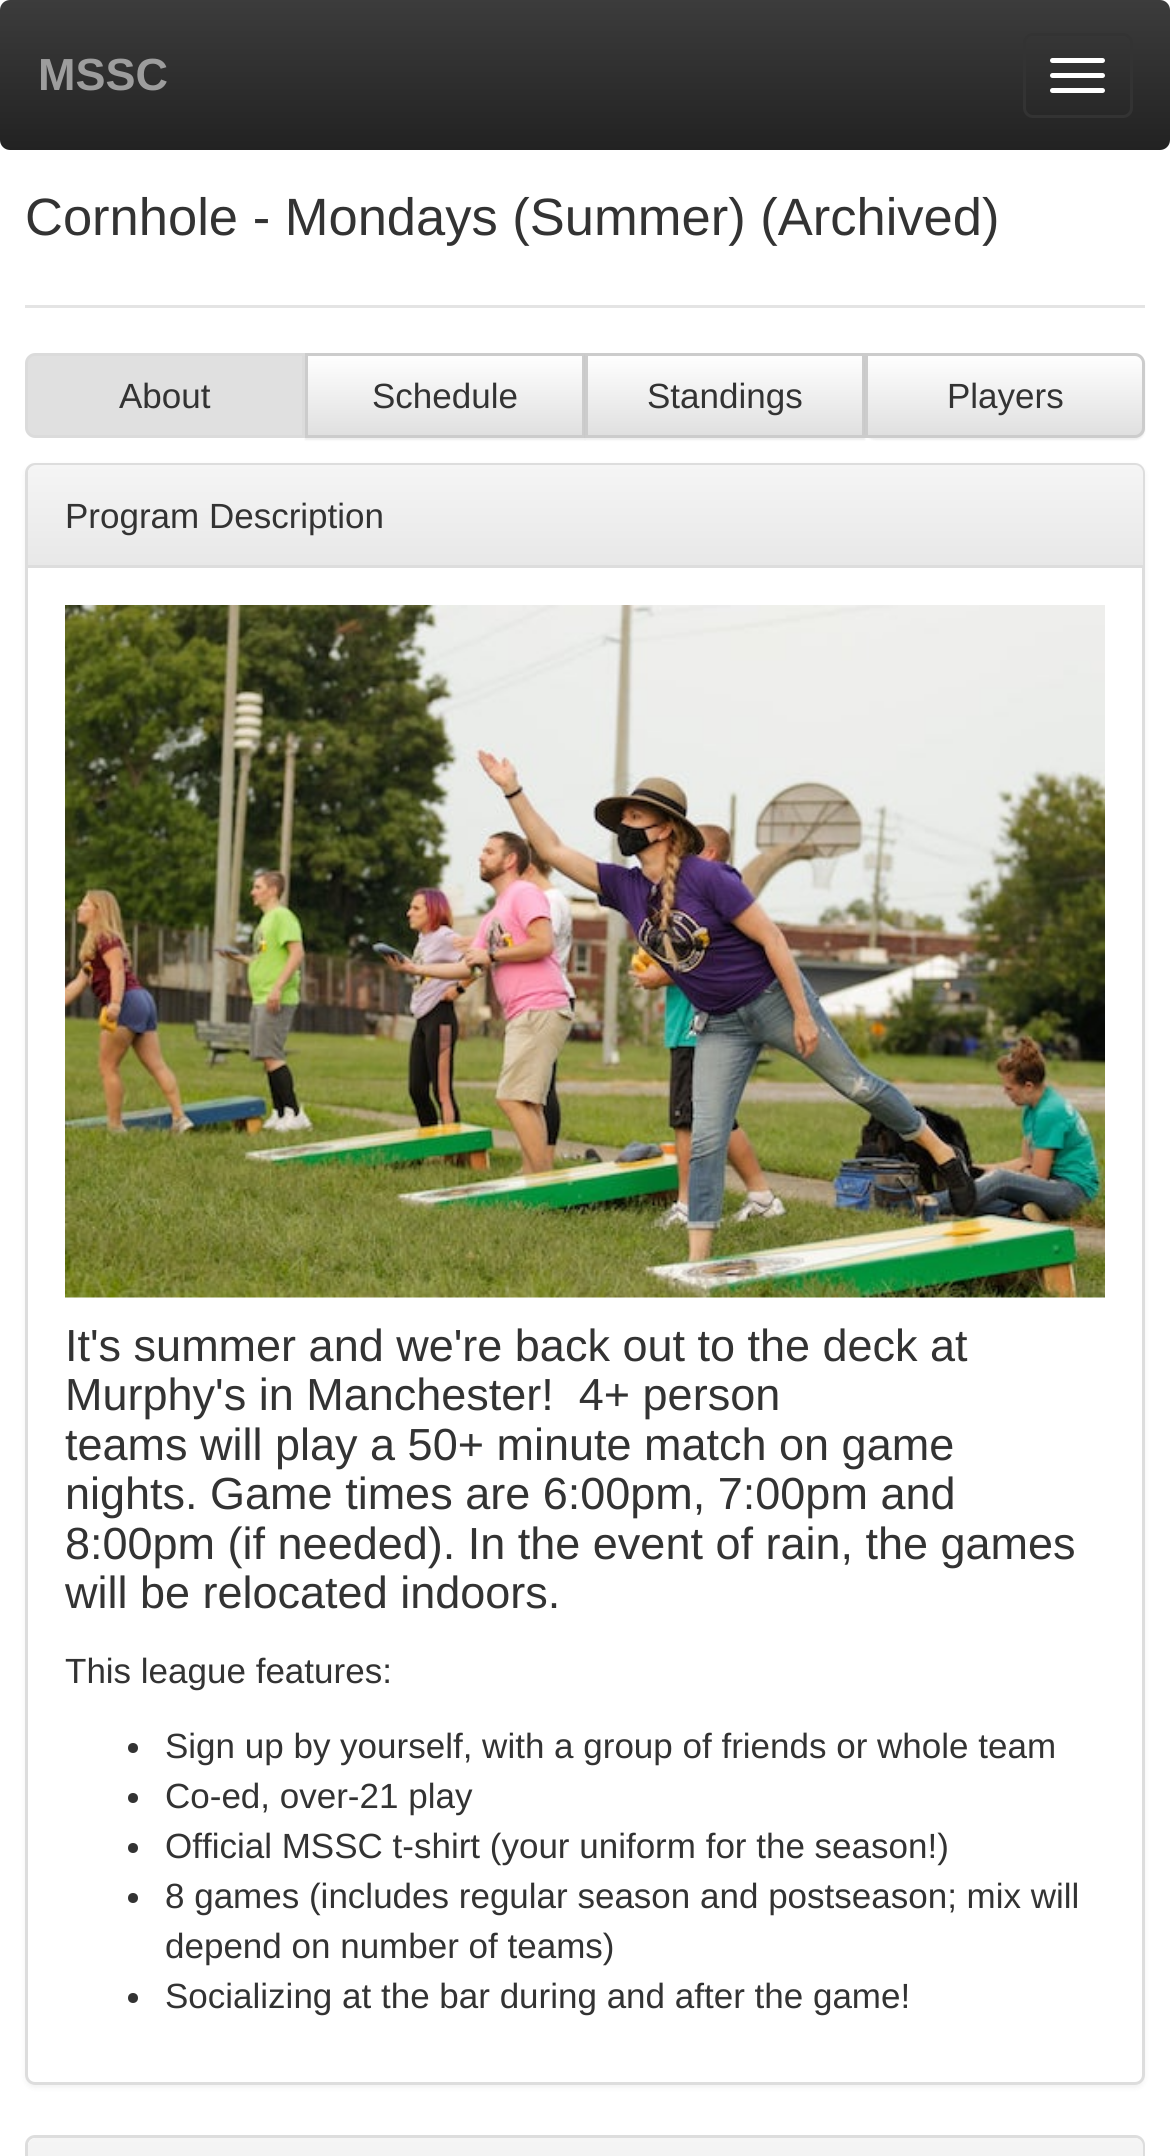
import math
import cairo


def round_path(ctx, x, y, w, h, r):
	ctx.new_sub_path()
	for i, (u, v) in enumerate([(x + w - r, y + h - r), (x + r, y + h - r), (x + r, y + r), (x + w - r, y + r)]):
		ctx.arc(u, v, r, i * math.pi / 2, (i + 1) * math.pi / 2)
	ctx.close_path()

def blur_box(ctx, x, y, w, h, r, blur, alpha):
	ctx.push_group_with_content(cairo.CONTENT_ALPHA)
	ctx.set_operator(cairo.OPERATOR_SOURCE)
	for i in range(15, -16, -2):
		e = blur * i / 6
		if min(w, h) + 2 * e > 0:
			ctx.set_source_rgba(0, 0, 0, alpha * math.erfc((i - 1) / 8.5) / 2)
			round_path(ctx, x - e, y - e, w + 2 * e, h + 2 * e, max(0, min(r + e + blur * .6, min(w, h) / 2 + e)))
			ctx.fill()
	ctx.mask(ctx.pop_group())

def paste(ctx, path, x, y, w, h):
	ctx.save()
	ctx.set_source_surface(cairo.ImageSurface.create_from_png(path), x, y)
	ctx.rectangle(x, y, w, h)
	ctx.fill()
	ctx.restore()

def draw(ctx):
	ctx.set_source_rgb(1, 1, 1)
	ctx.paint()
	gradient = cairo.LinearGradient(585, 0, 585, 150)
	gradient.add_color_stop_rgba(0, 0.235, 0.235, 0.235, 1)
	gradient.add_color_stop_rgba(1, 0.133, 0.133, 0.133, 1)
	ctx.set_source(gradient)
	round_path(ctx, 0, 0, 1170, 150, 10)
	ctx.fill()
	ctx.select_font_face('Liberation Sans', cairo.FONT_SLANT_NORMAL, cairo.FONT_WEIGHT_BOLD)
	ctx.set_font_size(45)
	ctx.set_source_rgb(0.616, 0.616, 0.616)
	ctx.move_to(38, 90)
	ctx.show_text('MSSC')
	round_path(ctx, 1024.5, 34.5, 107, 82, 8.5)
	ctx.set_source_rgb(0.2, 0.2, 0.2)
	ctx.set_line_width(3)
	ctx.stroke()
	ctx.set_source_rgb(1, 1, 1)
	round_path(ctx, 1050, 58, 55, 5, 2.5)
	ctx.fill()
	round_path(ctx, 1050, 73, 55, 5, 2.5)
	ctx.fill()
	round_path(ctx, 1050, 88, 55, 5, 2.5)
	ctx.fill()
	ctx.set_source_rgb(0.894, 0.894, 0.894)
	ctx.rectangle(25, 305, 1120, 3)
	ctx.fill()
	ctx.select_font_face('Liberation Sans')
	ctx.set_font_size(52.5)
	ctx.set_source_rgb(0.2, 0.2, 0.2)
	ctx.move_to(25, 235)
	ctx.show_text('Cornhole - Mondays (Summer) (Archived)')
	ctx.set_source_rgb(0, 0, 0)
	blur_box(ctx, 305, 355, 280, 85, 0, 1, 0.07)
	ctx.set_source_rgb(0.878, 0.878, 0.878)
	ctx.new_path()
	ctx.move_to(35, 354.5)
	ctx.line_to(303.5, 354.5)
	ctx.line_to(303.5, 436.5)
	ctx.line_to(35, 436.5)
	ctx.curve_to(30.5, 436.5, 26.5, 432.5, 26.5, 428)
	ctx.line_to(26.5, 363)
	ctx.curve_to(26.5, 358.5, 30.5, 354.5, 35, 354.5)
	ctx.close_path()
	ctx.fill_preserve()
	ctx.set_source_rgb(0.859, 0.859, 0.859)
	ctx.stroke()
	ctx.set_font_size(35)
	ctx.set_source_rgb(0.2, 0.2, 0.2)
	ctx.move_to(119, 408)
	ctx.show_text('About')
	gradient = cairo.LinearGradient(445, 355, 445, 435)
	gradient.add_color_stop_rgba(0, 1, 1, 1, 1)
	gradient.add_color_stop_rgba(1, 0.878, 0.878, 0.878, 1)
	ctx.set_source(gradient)
	ctx.rectangle(308, 356, 274, 79)
	ctx.fill()
	ctx.rectangle(306.5, 354.5, 277, 82)
	ctx.set_source_rgb(0.8, 0.8, 0.8)
	ctx.stroke()
	ctx.set_source_rgb(0.2, 0.2, 0.2)
	ctx.move_to(372, 408)
	ctx.show_text('Schedule')
	ctx.set_source_rgb(0, 0, 0)
	blur_box(ctx, 585, 355, 280, 85, 0, 1, 0.07)
	gradient = cairo.LinearGradient(725, 355, 725, 435)
	gradient.add_color_stop_rgba(0, 1, 1, 1, 1)
	gradient.add_color_stop_rgba(1, 0.878, 0.878, 0.878, 1)
	ctx.set_source(gradient)
	ctx.rectangle(588, 356, 274, 79)
	ctx.fill()
	ctx.rectangle(586.5, 354.5, 277, 82)
	ctx.set_source_rgb(0.8, 0.8, 0.8)
	ctx.stroke()
	ctx.set_source_rgb(0.2, 0.2, 0.2)
	ctx.move_to(647, 408)
	ctx.show_text('Standings')
	ctx.set_source_rgb(0, 0, 0)
	blur_box(ctx, 865, 355, 280, 85, 10, 1, 0.07)
	ctx.save()
	ctx.new_path()
	ctx.move_to(865, 353)
	ctx.line_to(1135, 353)
	ctx.curve_to(1140.5, 353, 1145, 357.5, 1145, 363)
	ctx.line_to(1145, 428)
	ctx.curve_to(1145, 433.5, 1140.5, 438, 1135, 438)
	ctx.line_to(865, 438)
	ctx.close_path()
	ctx.clip()
	gradient = cairo.LinearGradient(1005, 355, 1005, 435)
	gradient.add_color_stop_rgba(0, 1, 1, 1, 1)
	gradient.add_color_stop_rgba(1, 0.878, 0.878, 0.878, 1)
	ctx.set_source(gradient)
	ctx.rectangle(868, 355, 277, 80)
	ctx.fill()
	ctx.restore()
	ctx.set_source_rgba(1, 1, 1, 0.15)
	ctx.new_path()
	ctx.move_to(868, 358)
	ctx.line_to(1135, 358)
	ctx.curve_to(1139, 358, 1142, 361, 1142, 365)
	ctx.line_to(1142, 431)
	ctx.curve_to(1143, 430, 1143, 428, 1143, 427)
	ctx.line_to(1143, 363)
	ctx.curve_to(1143, 359, 1139, 355, 1135, 355)
	ctx.line_to(868, 355)
	ctx.close_path()
	ctx.fill()
	ctx.new_path()
	ctx.move_to(866.5, 354.5)
	ctx.line_to(1135, 354.5)
	ctx.curve_to(1139.5, 354.5, 1143.5, 358.5, 1143.5, 363)
	ctx.line_to(1143.5, 428)
	ctx.curve_to(1143.5, 432.5, 1139.5, 436.5, 1135, 436.5)
	ctx.line_to(866.5, 436.5)
	ctx.close_path()
	ctx.set_source_rgb(0.8, 0.8, 0.8)
	ctx.stroke()
	ctx.set_source_rgb(0.2, 0.2, 0.2)
	ctx.move_to(947, 408)
	ctx.show_text('Players')
	ctx.save()
	ctx.set_fill_rule(cairo.FILL_RULE_EVEN_ODD)
	ctx.new_path()
	ctx.move_to(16, 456)
	ctx.line_to(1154, 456)
	ctx.line_to(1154, 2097)
	ctx.line_to(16, 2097)
	ctx.close_path()
	ctx.move_to(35, 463)
	ctx.line_to(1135, 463)
	ctx.curve_to(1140.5, 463, 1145, 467.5, 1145, 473)
	ctx.line_to(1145, 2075)
	ctx.curve_to(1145, 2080.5, 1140.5, 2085, 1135, 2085)
	ctx.line_to(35, 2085)
	ctx.curve_to(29.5, 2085, 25, 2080.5, 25, 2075)
	ctx.line_to(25, 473)
	ctx.curve_to(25, 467.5, 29.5, 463, 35, 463)
	ctx.close_path()
	ctx.clip()
	ctx.set_source_rgb(0, 0, 0)
	blur_box(ctx, 25, 465, 1120, 1623, 10, 2.5, 0.05)
	ctx.restore()
	round_path(ctx, 26.5, 464.5, 1117, 1619, 8.5)
	ctx.set_source_rgb(0.867, 0.867, 0.867)
	ctx.stroke()
	gradient = cairo.LinearGradient(585, 465, 585, 565)
	gradient.add_color_stop_rgba(0, 0.961, 0.961, 0.961, 1)
	gradient.add_color_stop_rgba(1, 0.91, 0.91, 0.91, 1)
	ctx.set_source(gradient)
	ctx.new_path()
	ctx.move_to(36, 465)
	ctx.line_to(1135, 465)
	ctx.curve_to(1139.5, 465, 1143, 468.5, 1143, 473)
	ctx.line_to(1143, 565)
	ctx.line_to(28, 565)
	ctx.line_to(28, 473)
	ctx.curve_to(28, 468.5, 31.5, 465, 36, 465)
	ctx.close_path()
	ctx.fill()
	ctx.set_source_rgb(0.867, 0.867, 0.867)
	ctx.rectangle(28, 565, 1115, 3)
	ctx.fill()
	ctx.set_source_rgb(0.2, 0.2, 0.2)
	ctx.move_to(65, 528)
	ctx.show_text('Program Description')
	paste(ctx, 'media/1.png', 65, 605, 1040, 693)
	ctx.set_font_size(45)
	for x, y, s in [
		(65, 1361, 'It\'s summer and we\'re back out to the deck at'),
		(65, 1410, 'Murphy\'s in Manchester!  4+ person'),
		(65, 1460, 'teams will play a 50+ minute match on game'),
		(65, 1509, 'nights. Game times are 6:00pm, 7:00pm and'),
		(65, 1559, '8:00pm (if needed). In the event of rain, the games'),
		(65, 1608, 'will be relocated indoors.'),
	]:
		ctx.move_to(x, y)
		ctx.show_text(s)
	ctx.set_font_size(35)
	ctx.move_to(65, 1683)
	ctx.show_text('This league features:')
	ctx.new_path()
	ctx.arc(133, 1748, 5, 0, 2 * math.pi)
	ctx.fill()
	ctx.move_to(165, 1758)
	ctx.show_text('Sign up by yourself, with a group of friends or whole team')
	ctx.new_path()
	ctx.arc(133, 1798, 5, 0, 2 * math.pi)
	ctx.fill()
	ctx.move_to(165, 1808)
	ctx.show_text('Co-ed, over-21 play')
	ctx.new_path()
	ctx.arc(133, 1848, 5, 0, 2 * math.pi)
	ctx.fill()
	ctx.move_to(165, 1858)
	ctx.show_text('Official MSSC t-shirt (your uniform for the season!)')
	ctx.new_path()
	ctx.arc(133, 1898, 5, 0, 2 * math.pi)
	ctx.fill()
	ctx.move_to(165, 1908)
	ctx.show_text('8 games (includes regular season and postseason; mix will')
	ctx.move_to(165, 1958)
	ctx.show_text('depend on number of teams)')
	ctx.new_path()
	ctx.arc(133, 1998, 5, 0, 2 * math.pi)
	ctx.fill()
	ctx.move_to(165, 2008)
	ctx.show_text('Socializing at the bar during and after the game!')
	round_path(ctx, 26.5, 2136.5, 1117, 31, 8.5)
	ctx.set_source_rgb(0.867, 0.867, 0.867)
	ctx.stroke()
	gradient = cairo.LinearGradient(585, 2138, 585, 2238)
	gradient.add_color_stop_rgba(0, 0.961, 0.961, 0.961, 1)
	gradient.add_color_stop_rgba(1, 0.91, 0.91, 0.91, 1)
	ctx.set_source(gradient)
	ctx.new_path()
	ctx.move_to(36, 2138)
	ctx.line_to(1135, 2138)
	ctx.curve_to(1139.5, 2138, 1143, 2141.5, 1143, 2146)
	ctx.line_to(1143, 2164)
	ctx.line_to(28, 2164)
	ctx.line_to(28, 2146)
	ctx.curve_to(28, 2141.5, 31.5, 2138, 36, 2138)
	ctx.close_path()
	ctx.fill()


surface = cairo.ImageSurface(cairo.FORMAT_RGB24, 1170, 2156)
ctx = cairo.Context(surface)
options = cairo.FontOptions()
options.set_hint_metrics(cairo.HINT_METRICS_OFF)
options.set_hint_style(cairo.HINT_STYLE_NONE)
ctx.set_font_options(options)
ctx.set_miter_limit(4)
draw(ctx)
surface.write_to_png('image.png')
